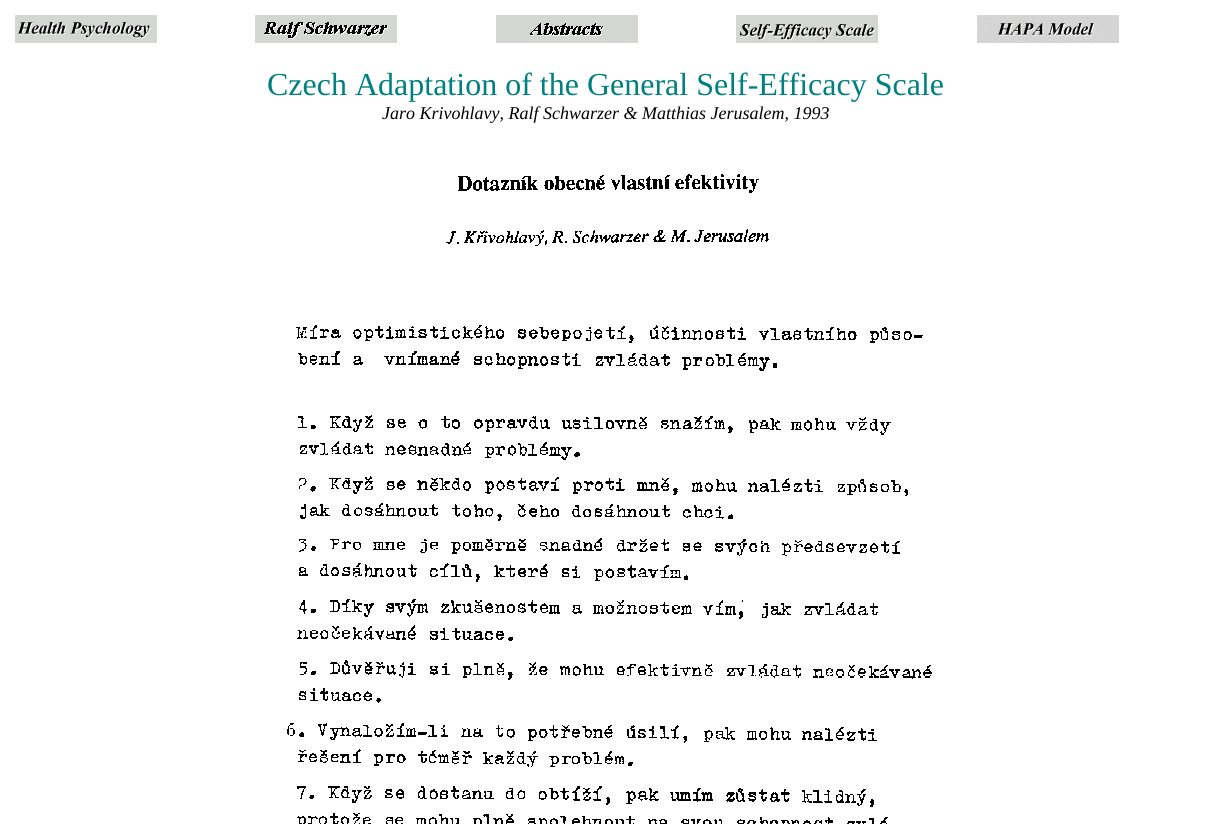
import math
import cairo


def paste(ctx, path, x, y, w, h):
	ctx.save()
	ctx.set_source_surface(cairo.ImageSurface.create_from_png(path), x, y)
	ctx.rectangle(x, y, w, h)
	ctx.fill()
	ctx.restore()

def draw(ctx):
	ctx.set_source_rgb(1, 1, 1)
	ctx.paint()
	paste(ctx, 'media/1.png', 15, 15, 142, 28)
	paste(ctx, 'media/2.png', 255, 15, 142, 28)
	paste(ctx, 'media/3.png', 496, 15, 142, 28)
	paste(ctx, 'media/4.png', 736, 15, 142, 28)
	paste(ctx, 'media/5.png', 977, 15, 142, 28)
	ctx.select_font_face('Liberation Serif')
	ctx.set_font_size(32)
	ctx.set_source_rgb(0, 0.502, 0.502)
	ctx.move_to(267, 95)
	ctx.show_text('Czech Adaptation of the General Self-Efficacy Scale')
	ctx.select_font_face('Liberation Serif', cairo.FONT_SLANT_ITALIC)
	ctx.set_font_size(18)
	ctx.set_source_rgb(0, 0, 0)
	ctx.move_to(382, 119)
	ctx.show_text('Jaro Krivohlavy, Ralf Schwarzer & Matthias Jerusalem, 1993')
	paste(ctx, 'media/6.png', 287, 174, 645, 650)


surface = cairo.ImageSurface(cairo.FORMAT_RGB24, 1212, 824)
ctx = cairo.Context(surface)
options = cairo.FontOptions()
options.set_hint_metrics(cairo.HINT_METRICS_OFF)
options.set_hint_style(cairo.HINT_STYLE_NONE)
ctx.set_font_options(options)
ctx.set_miter_limit(4)
draw(ctx)
surface.write_to_png('image.png')
